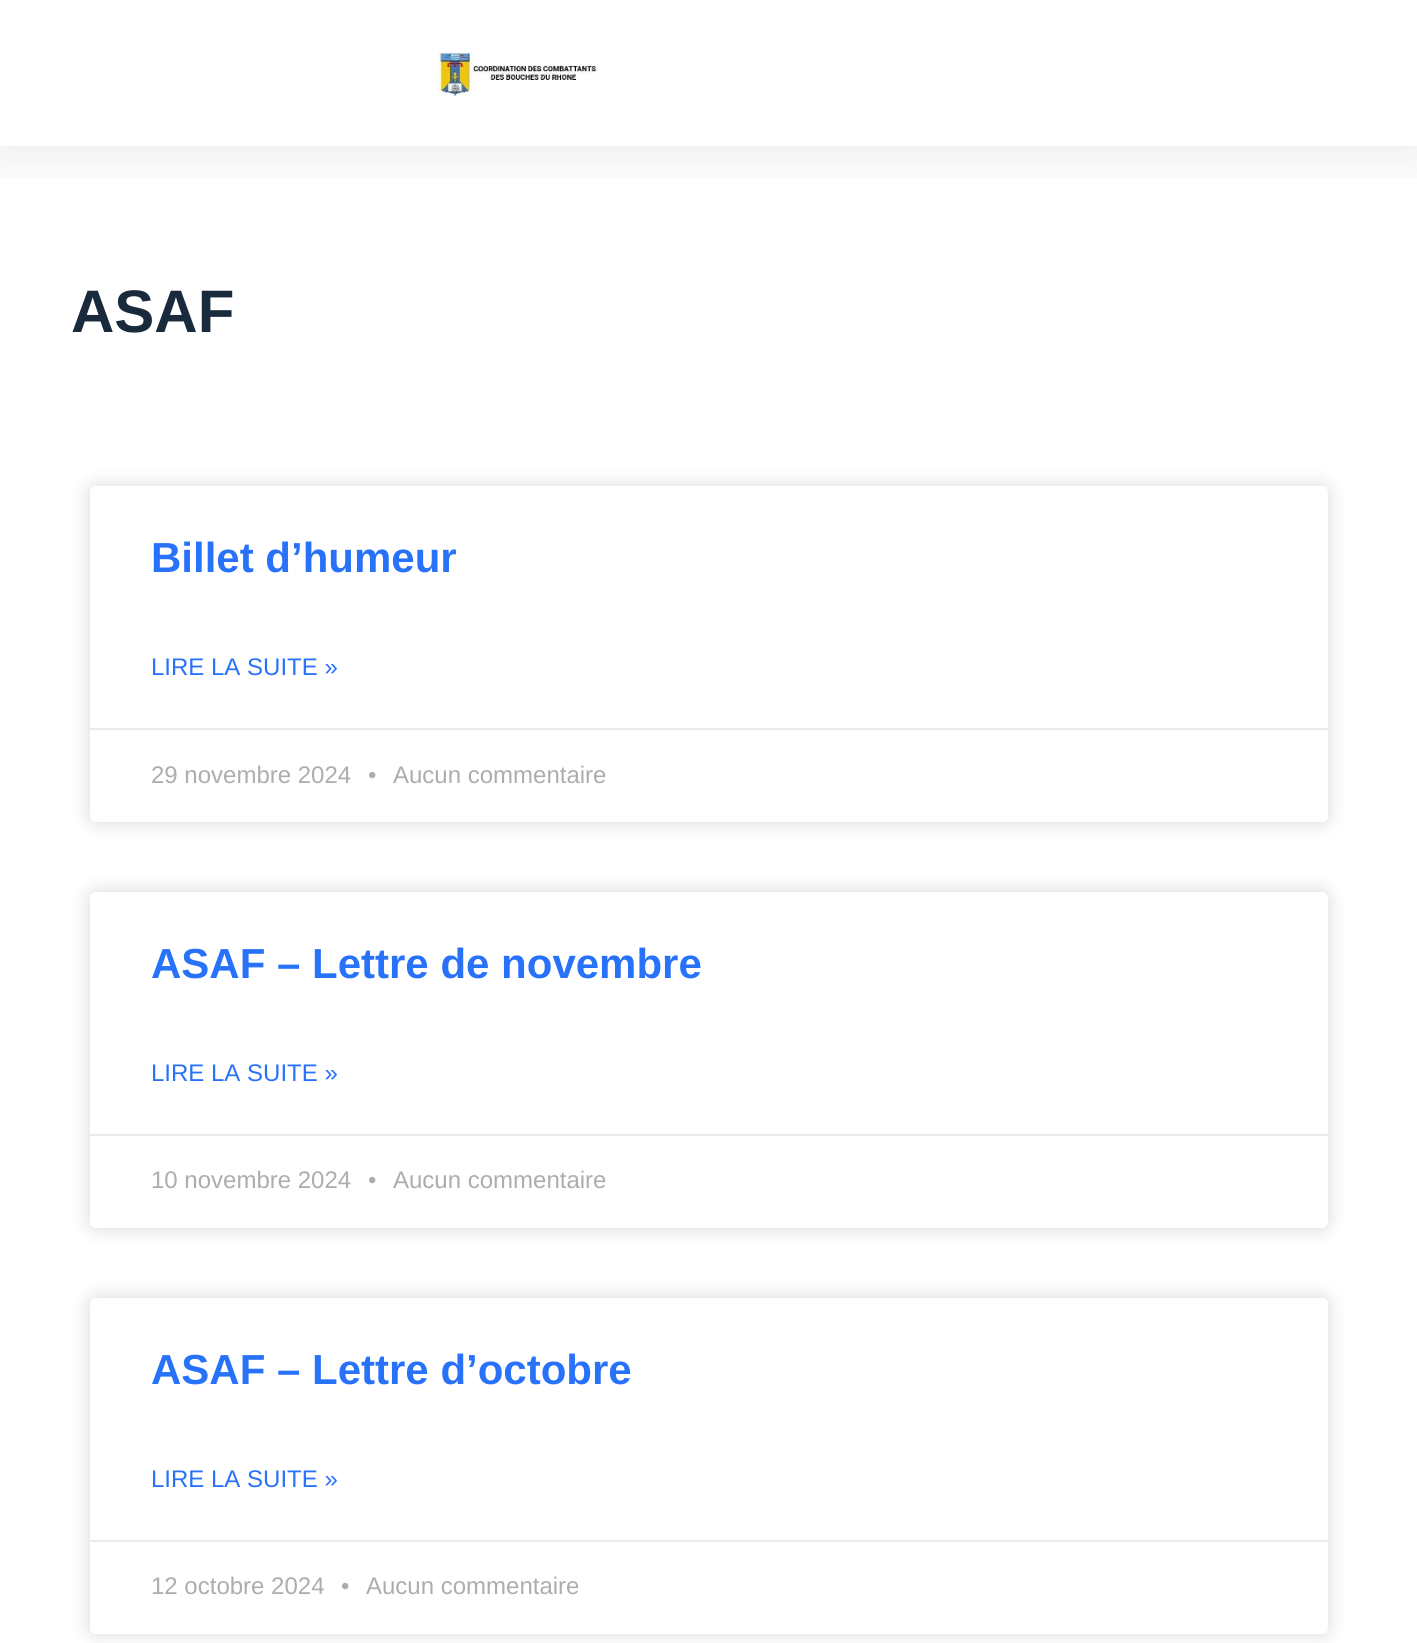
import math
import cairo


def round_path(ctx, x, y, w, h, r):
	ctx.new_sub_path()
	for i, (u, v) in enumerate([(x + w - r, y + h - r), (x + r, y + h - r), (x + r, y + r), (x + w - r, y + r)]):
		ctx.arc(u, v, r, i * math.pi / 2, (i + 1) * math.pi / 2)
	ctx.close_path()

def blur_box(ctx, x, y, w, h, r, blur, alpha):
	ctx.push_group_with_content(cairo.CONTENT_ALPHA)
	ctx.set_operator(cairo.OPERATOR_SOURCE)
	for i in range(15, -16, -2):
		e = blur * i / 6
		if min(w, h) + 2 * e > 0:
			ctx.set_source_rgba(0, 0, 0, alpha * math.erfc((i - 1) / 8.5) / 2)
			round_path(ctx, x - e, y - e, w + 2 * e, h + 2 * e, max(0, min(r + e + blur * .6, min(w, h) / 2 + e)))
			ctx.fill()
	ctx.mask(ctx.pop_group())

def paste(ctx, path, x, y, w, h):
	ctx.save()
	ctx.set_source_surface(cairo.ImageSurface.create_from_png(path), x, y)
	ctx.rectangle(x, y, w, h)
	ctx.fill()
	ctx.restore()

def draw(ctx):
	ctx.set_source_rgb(1, 1, 1)
	ctx.paint()
	ctx.save()
	ctx.rectangle(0, 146, 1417, 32)
	ctx.clip()
	ctx.set_source_rgb(0, 0, 0)
	blur_box(ctx, 0, 0, 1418, 146, 0, 38, 0.1)
	ctx.restore()
	paste(ctx, 'media/1.png', 438, 52, 160, 44)
	ctx.select_font_face('Liberation Sans', cairo.FONT_SLANT_NORMAL, cairo.FONT_WEIGHT_BOLD)
	ctx.set_font_size(60)
	ctx.set_source_rgb(0.098, 0.165, 0.239)
	ctx.move_to(71, 332)
	ctx.show_text('ASAF')
	ctx.set_source_rgb(0, 0, 0)
	blur_box(ctx, 90, 486, 1238, 336, 6, 10, 0.15)
	ctx.set_source_rgb(1, 1, 1)
	round_path(ctx, 90, 486, 1238, 336, 6)
	ctx.fill()
	ctx.set_font_size(42)
	ctx.set_source_rgb(0.157, 0.447, 0.98)
	ctx.move_to(151, 572)
	ctx.show_text('Billet d’humeur')
	ctx.select_font_face('Liberation Sans')
	ctx.set_font_size(24)
	ctx.move_to(151, 675)
	ctx.show_text('LIRE LA SUITE »')
	ctx.set_source_rgb(0.918, 0.918, 0.918)
	ctx.rectangle(90, 728, 1238, 2)
	ctx.fill()
	ctx.set_source_rgb(0.678, 0.678, 0.678)
	for x, y, s in [
		(151, 783, '29 novembre 2024'),
		(368, 783, '•'),
		(393, 783, 'Aucun commentaire'),
	]:
		ctx.move_to(x, y)
		ctx.show_text(s)
	ctx.set_source_rgb(0, 0, 0)
	blur_box(ctx, 90, 892, 1238, 336, 6, 10, 0.15)
	ctx.set_source_rgb(1, 1, 1)
	round_path(ctx, 90, 892, 1238, 336, 6)
	ctx.fill()
	ctx.select_font_face('Liberation Sans', cairo.FONT_SLANT_NORMAL, cairo.FONT_WEIGHT_BOLD)
	ctx.set_font_size(42)
	ctx.set_source_rgb(0.157, 0.447, 0.98)
	ctx.move_to(151, 978)
	ctx.show_text('ASAF – Lettre de novembre')
	ctx.select_font_face('Liberation Sans')
	ctx.set_font_size(24)
	ctx.move_to(151, 1081)
	ctx.show_text('LIRE LA SUITE »')
	ctx.set_source_rgb(0.918, 0.918, 0.918)
	ctx.rectangle(90, 1134, 1238, 2)
	ctx.fill()
	ctx.set_source_rgb(0.678, 0.678, 0.678)
	for x, y, s in [
		(151, 1188, '10 novembre 2024'),
		(368, 1188, '•'),
		(393, 1188, 'Aucun commentaire'),
	]:
		ctx.move_to(x, y)
		ctx.show_text(s)
	ctx.set_source_rgb(0, 0, 0)
	blur_box(ctx, 90, 1298, 1238, 336, 6, 10, 0.15)
	ctx.set_source_rgb(1, 1, 1)
	round_path(ctx, 90, 1298, 1238, 336, 6)
	ctx.fill()
	ctx.select_font_face('Liberation Sans', cairo.FONT_SLANT_NORMAL, cairo.FONT_WEIGHT_BOLD)
	ctx.set_font_size(42)
	ctx.set_source_rgb(0.157, 0.447, 0.98)
	ctx.move_to(151, 1384)
	ctx.show_text('ASAF – Lettre d’octobre')
	ctx.select_font_face('Liberation Sans')
	ctx.set_font_size(24)
	ctx.move_to(151, 1487)
	ctx.show_text('LIRE LA SUITE »')
	ctx.set_source_rgb(0.918, 0.918, 0.918)
	ctx.rectangle(90, 1540, 1238, 2)
	ctx.fill()
	ctx.set_source_rgb(0.678, 0.678, 0.678)
	for x, y, s in [
		(151, 1594, '12 octobre 2024'),
		(341, 1594, '•'),
		(366, 1594, 'Aucun commentaire'),
	]:
		ctx.move_to(x, y)
		ctx.show_text(s)


surface = cairo.ImageSurface(cairo.FORMAT_RGB24, 1417, 1643)
ctx = cairo.Context(surface)
options = cairo.FontOptions()
options.set_hint_metrics(cairo.HINT_METRICS_OFF)
options.set_hint_style(cairo.HINT_STYLE_NONE)
ctx.set_font_options(options)
ctx.set_miter_limit(4)
draw(ctx)
surface.write_to_png('image.png')
